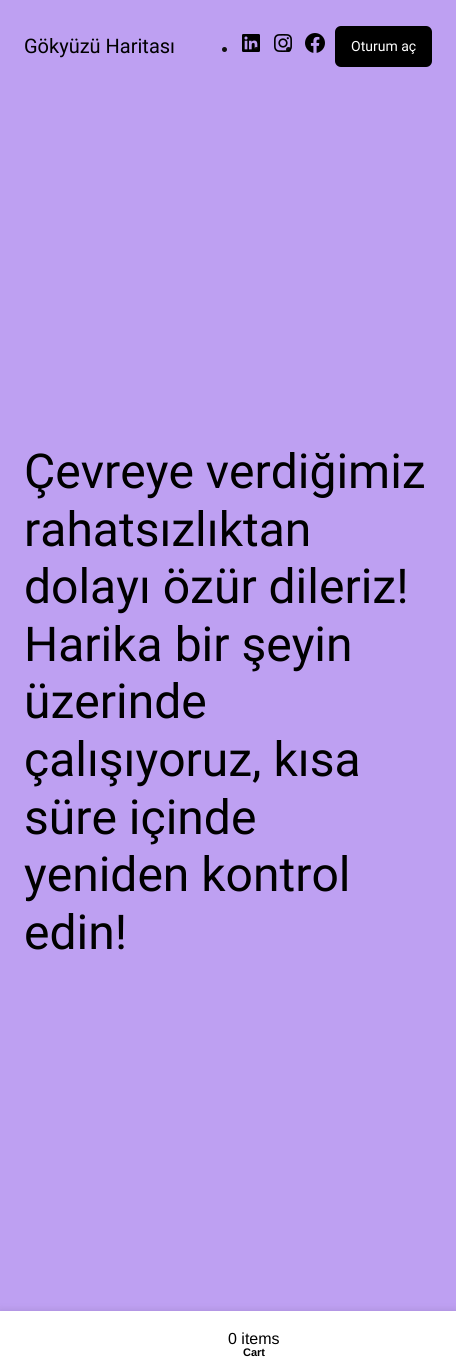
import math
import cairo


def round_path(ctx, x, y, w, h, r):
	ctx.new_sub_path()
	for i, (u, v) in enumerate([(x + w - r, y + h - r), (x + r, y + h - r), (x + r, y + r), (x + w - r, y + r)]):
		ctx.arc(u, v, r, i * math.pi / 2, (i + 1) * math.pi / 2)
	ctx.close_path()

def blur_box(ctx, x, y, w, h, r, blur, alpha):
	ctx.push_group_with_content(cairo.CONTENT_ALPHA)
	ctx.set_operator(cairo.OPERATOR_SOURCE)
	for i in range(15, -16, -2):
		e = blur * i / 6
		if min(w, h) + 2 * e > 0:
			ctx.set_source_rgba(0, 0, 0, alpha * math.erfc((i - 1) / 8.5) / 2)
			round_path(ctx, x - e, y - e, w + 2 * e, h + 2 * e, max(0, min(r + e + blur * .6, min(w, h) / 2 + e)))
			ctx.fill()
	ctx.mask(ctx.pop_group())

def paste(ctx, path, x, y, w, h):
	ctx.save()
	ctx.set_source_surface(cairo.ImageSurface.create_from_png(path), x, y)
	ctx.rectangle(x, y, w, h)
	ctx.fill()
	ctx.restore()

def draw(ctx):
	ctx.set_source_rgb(0.745, 0.627, 0.949)
	ctx.paint()
	ctx.select_font_face('Roboto')
	ctx.set_font_size(20)
	ctx.set_source_rgb(0, 0, 0)
	ctx.move_to(24, 53)
	ctx.show_text('Gökyüzü Haritası')
	ctx.set_source_rgb(0.067, 0.067, 0.067)
	ctx.new_path()
	ctx.arc(224.5, 49.5, 2.5, 0, 2 * math.pi)
	ctx.fill()
	ctx.arc(256.5, 49.5, 2.5, 0, 2 * math.pi)
	ctx.fill()
	paste(ctx, 'media/1.png', 242, 34, 18, 18)
	ctx.arc(288.5, 49.5, 2.5, 0, 2 * math.pi)
	ctx.fill()
	paste(ctx, 'media/2.png', 274, 34, 18, 18)
	paste(ctx, 'media/3.png', 305, 33, 20, 20)
	ctx.set_source_rgb(0, 0, 0)
	round_path(ctx, 335, 26, 97, 41, 6)
	ctx.fill()
	ctx.set_font_size(14)
	ctx.set_source_rgb(1, 1, 1)
	ctx.move_to(351, 51)
	ctx.show_text('Oturum aç')
	ctx.set_font_size(48)
	ctx.set_source_rgb(0, 0, 0)
	for x, y, s in [
		(24, 488, 'Çevreye verdiğimiz'),
		(24, 546, 'rahatsızlıktan'),
		(24, 603, 'dolayı özür dileriz!'),
		(24, 661, 'Harika bir şeyin'),
		(24, 718, 'üzerinde'),
		(24, 776, 'çalışıyoruz, kısa'),
		(24, 834, 'süre içinde'),
		(24, 891, 'yeniden kontrol'),
		(24, 949, 'edin!'),
	]:
		ctx.move_to(x, y)
		ctx.show_text(s)
	ctx.set_source_rgb(0, 0, 0)
	blur_box(ctx, 0, 1311, 456, 55, 0, 4.5, 0.12)
	ctx.set_source_rgb(1, 1, 1)
	ctx.rectangle(0, 1311, 456, 55)
	ctx.fill()
	ctx.select_font_face('Liberation Sans')
	ctx.set_font_size(16)
	ctx.set_source_rgb(0, 0, 0)
	ctx.move_to(228, 1344)
	ctx.show_text('0 items')
	ctx.select_font_face('Liberation Sans', cairo.FONT_SLANT_NORMAL, cairo.FONT_WEIGHT_BOLD)
	ctx.set_font_size(11)
	ctx.move_to(243, 1356)
	ctx.show_text('Cart')


surface = cairo.ImageSurface(cairo.FORMAT_RGB24, 456, 1366)
ctx = cairo.Context(surface)
options = cairo.FontOptions()
options.set_hint_metrics(cairo.HINT_METRICS_OFF)
options.set_hint_style(cairo.HINT_STYLE_NONE)
ctx.set_font_options(options)
ctx.set_miter_limit(4)
draw(ctx)
surface.write_to_png('image.png')
